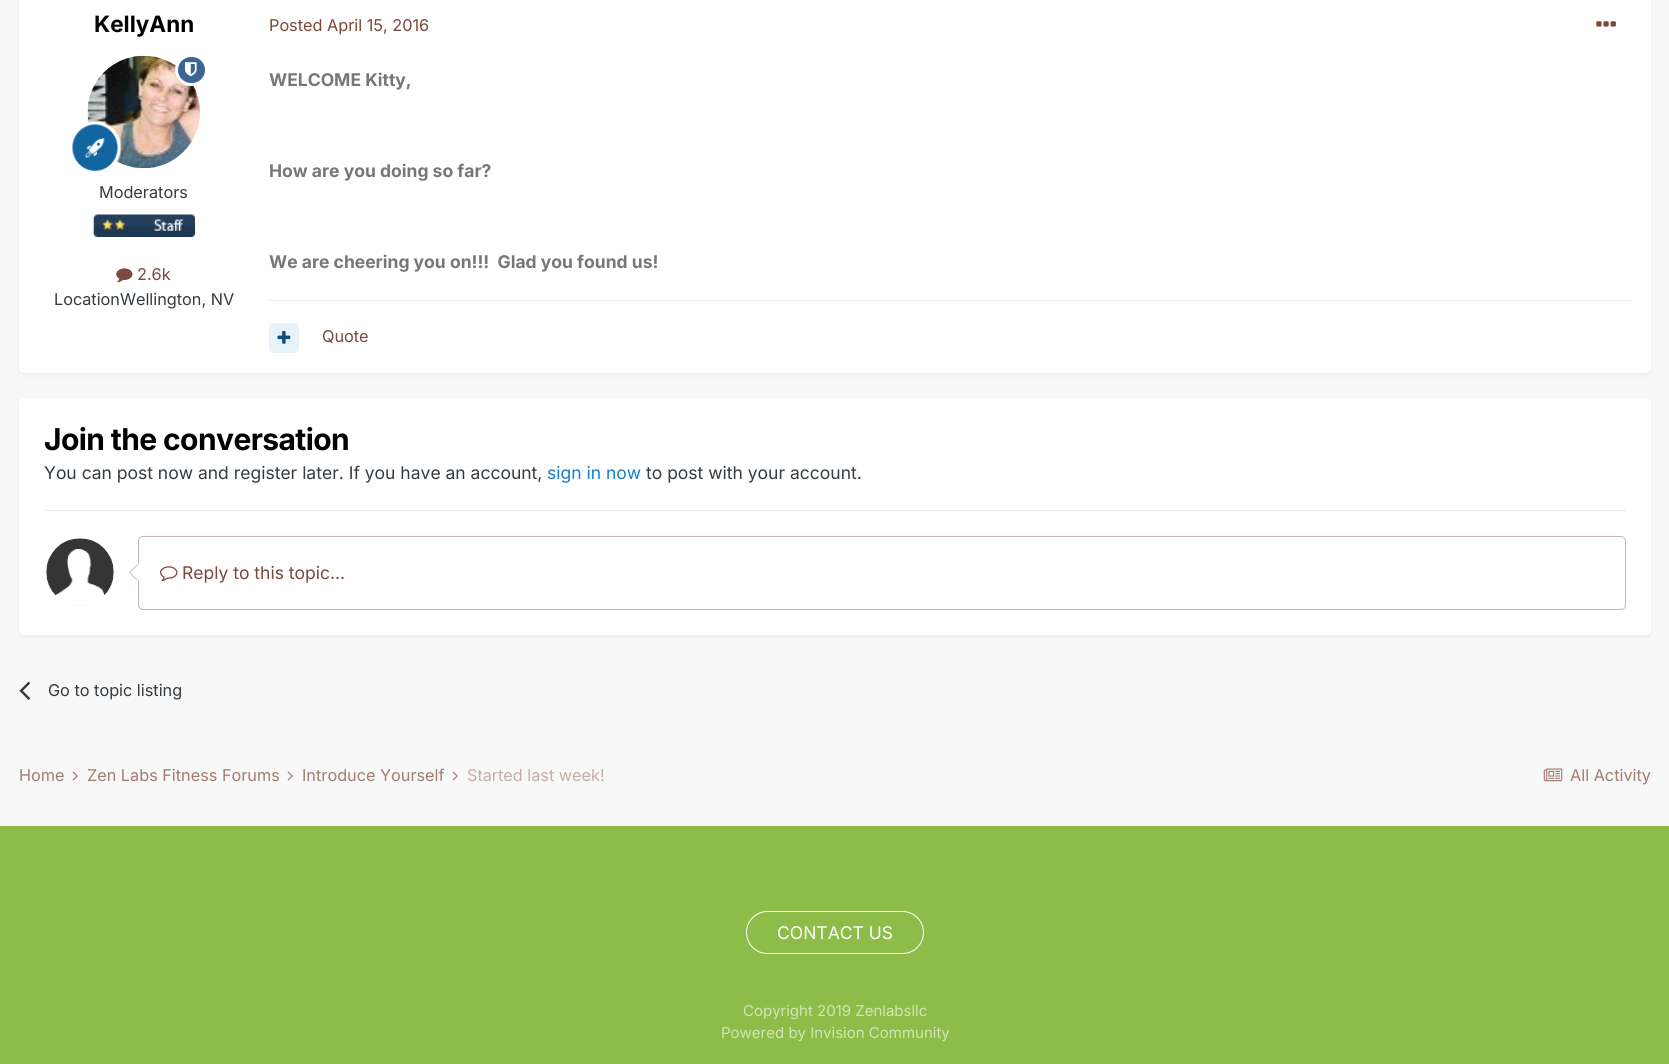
import math
import cairo


def write_spaced(ctx, x, y, s, letter, word):
	ctx.move_to(x, y)
	for ch in s:
		ctx.show_text(ch)
		ctx.rel_move_to(letter + word * (ch == ' '), 0)

def round_path(ctx, x, y, w, h, r):
	ctx.new_sub_path()
	for i, (u, v) in enumerate([(x + w - r, y + h - r), (x + r, y + h - r), (x + r, y + r), (x + w - r, y + r)]):
		ctx.arc(u, v, r, i * math.pi / 2, (i + 1) * math.pi / 2)
	ctx.close_path()

def blur_box(ctx, x, y, w, h, r, blur, alpha):
	ctx.push_group_with_content(cairo.CONTENT_ALPHA)
	ctx.set_operator(cairo.OPERATOR_SOURCE)
	for i in range(15, -16, -2):
		e = blur * i / 6
		if min(w, h) + 2 * e > 0:
			ctx.set_source_rgba(0, 0, 0, alpha * math.erfc((i - 1) / 8.5) / 2)
			round_path(ctx, x - e, y - e, w + 2 * e, h + 2 * e, max(0, min(r + e + blur * .6, min(w, h) / 2 + e)))
			ctx.fill()
	ctx.mask(ctx.pop_group())

def paste(ctx, path, x, y, w, h):
	ctx.save()
	ctx.set_source_surface(cairo.ImageSurface.create_from_png(path), x, y)
	ctx.rectangle(x, y, w, h)
	ctx.fill()
	ctx.restore()

def draw(ctx):
	ctx.set_source_rgb(0.969, 0.969, 0.969)
	ctx.paint()
	ctx.set_source_rgb(0.176, 0.216, 0.282)
	blur_box(ctx, 20, -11, 1630, 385, 4, 2.5, 0.1)
	ctx.set_source_rgb(1, 1, 1)
	round_path(ctx, 19, -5, 1632, 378, 5)
	ctx.fill()
	ctx.select_font_face('Inter', cairo.FONT_SLANT_NORMAL, cairo.FONT_WEIGHT_BOLD)
	ctx.set_font_size(22.5)
	ctx.set_source_rgb(0, 0, 0)
	ctx.move_to(94, 32)
	ctx.show_text('KellyAnn')
	paste(ctx, 'media/2.png', 87, 55, 113, 114)
	ctx.set_source_rgb(0.239, 0.396, 0.58)
	round_path(ctx, 176.5, 55.5, 30, 29, 14.5)
	ctx.fill_preserve()
	ctx.set_source_rgb(1, 1, 1)
	ctx.set_line_width(3)
	ctx.stroke()
	paste(ctx, 'media/1.png', 185, 62, 12, 15)
	paste(ctx, 'media/3.png', 72, 121, 49, 50)
	ctx.select_font_face('Inter')
	ctx.set_font_size(16.25)
	ctx.set_source_rgb(0.208, 0.235, 0.255)
	ctx.move_to(99, 198)
	ctx.show_text('Moderators')
	paste(ctx, 'media/4.png', 93, 214, 102, 23)
	paste(ctx, 'media/5.png', 116, 268, 17, 15)
	ctx.set_source_rgb(0.482, 0.282, 0.231)
	ctx.move_to(137, 280)
	ctx.show_text('2.6k')
	ctx.set_source_rgb(0.208, 0.235, 0.255)
	ctx.move_to(54, 305)
	ctx.show_text('LocationWellington, NV')
	ctx.set_source_rgb(0.482, 0.282, 0.231)
	ctx.move_to(269, 31)
	ctx.show_text('Posted April 15, 2016')
	paste(ctx, 'media/6.png', 1596, 21, 20, 6)
	ctx.select_font_face('Inter', cairo.FONT_SLANT_NORMAL, cairo.FONT_WEIGHT_BOLD)
	ctx.set_font_size(17.5)
	ctx.set_source_rgb(0.467, 0.467, 0.467)
	for x, y, s in [
		(269, 86, 'WELCOME Kitty,'),
		(269, 177, 'How are you doing so far?'),
		(269, 268, 'We are cheering you on!!!  Glad you found us!'),
	]:
		ctx.move_to(x, y)
		ctx.show_text(s)
	ctx.set_source_rgb(0.922, 0.925, 0.925)
	ctx.rectangle(269, 300, 1362, 1)
	ctx.fill()
	ctx.set_source_rgb(0.91, 0.949, 0.98)
	round_path(ctx, 269, 323, 30, 30, 5)
	ctx.fill()
	paste(ctx, 'media/7.png', 277, 331, 14, 13)
	ctx.select_font_face('Inter')
	ctx.set_font_size(16.25)
	ctx.set_source_rgb(0.482, 0.282, 0.231)
	ctx.move_to(322, 342)
	ctx.show_text('Quote')
	ctx.set_source_rgb(0.176, 0.216, 0.282)
	blur_box(ctx, 20, 401, 1630, 235, 4, 2.5, 0.1)
	ctx.set_source_rgb(1, 1, 1)
	round_path(ctx, 19, 398, 1632, 237, 5)
	ctx.fill()
	ctx.set_source_rgb(0.922, 0.894, 0.886)
	ctx.rectangle(44, 510, 1582, 1)
	ctx.fill()
	ctx.select_font_face('Inter', cairo.FONT_SLANT_NORMAL, cairo.FONT_WEIGHT_BOLD)
	ctx.set_font_size(30)
	ctx.set_source_rgb(0, 0, 0)
	write_spaced(ctx, 44, 450, 'Join the conversation', -0.6, 0)
	ctx.select_font_face('Inter')
	ctx.set_font_size(17.5)
	ctx.set_source_rgb(0.208, 0.235, 0.255)
	ctx.move_to(44, 479)
	ctx.show_text('You can post now and register later. If you have an account,')
	ctx.set_source_rgb(0.09, 0.494, 0.788)
	ctx.move_to(547, 479)
	ctx.show_text('sign in now')
	ctx.set_source_rgb(0.208, 0.235, 0.255)
	ctx.move_to(646, 479)
	ctx.show_text('to post with your account.')
	paste(ctx, 'media/8.png', 46, 538, 68, 68)
	round_path(ctx, 138.5, 536.5, 1487, 73, 4.5)
	ctx.set_source_rgb(0.792, 0.714, 0.694)
	ctx.set_line_width(1)
	ctx.stroke()
	ctx.new_path()
	ctx.move_to(137.5, 564)
	ctx.line_to(137.5, 581)
	ctx.line_to(129, 572.5)
	ctx.close_path()
	ctx.fill()
	ctx.set_source_rgb(1, 1, 1)
	ctx.new_path()
	ctx.move_to(139, 564)
	ctx.line_to(139, 581)
	ctx.line_to(130, 572.5)
	ctx.close_path()
	ctx.fill()
	paste(ctx, 'media/9.png', 160, 566, 18, 16)
	ctx.set_source_rgb(0.482, 0.282, 0.231)
	ctx.move_to(182, 579)
	ctx.show_text('Reply to this topic...')
	paste(ctx, 'media/10.png', 19, 681, 12, 19)
	ctx.set_font_size(16.25)
	ctx.set_source_rgb(0.208, 0.235, 0.255)
	ctx.move_to(48, 696)
	ctx.show_text('Go to topic listing')
	ctx.set_source_rgb(0.627, 0.49, 0.451)
	ctx.move_to(19, 781)
	ctx.show_text('Home')
	paste(ctx, 'media/11.png', 72, 771, 6, 10)
	ctx.move_to(87, 781)
	ctx.show_text('Zen Labs Fitness Forums')
	paste(ctx, 'media/11.png', 287, 771, 6, 10)
	ctx.move_to(302, 781)
	ctx.show_text('Introduce Yourself')
	paste(ctx, 'media/11.png', 452, 771, 6, 10)
	ctx.set_source_rgb(0.765, 0.682, 0.659)
	ctx.move_to(467, 781)
	ctx.show_text('Started last week!')
	paste(ctx, 'media/12.png', 1543, 768, 20, 14)
	ctx.set_source_rgb(0.627, 0.49, 0.451)
	ctx.move_to(1570, 781)
	ctx.show_text('All Activity')
	ctx.set_source_rgb(0.553, 0.741, 0.282)
	ctx.rectangle(0, 826, 1669, 238)
	ctx.fill()
	round_path(ctx, 746.5, 911.5, 177, 42, 21)
	ctx.set_source_rgb(1, 1, 1)
	ctx.stroke()
	ctx.set_font_size(17.5)
	ctx.move_to(777, 939)
	ctx.show_text('CONTACT US')
	ctx.set_font_size(15)
	ctx.set_source_rgb(0.82, 0.898, 0.714)
	ctx.move_to(743, 1016)
	ctx.show_text('Copyright 2019 Zenlabsllc')
	ctx.move_to(721, 1038)
	ctx.show_text('Powered by Invision Community')


surface = cairo.ImageSurface(cairo.FORMAT_RGB24, 1669, 1064)
ctx = cairo.Context(surface)
options = cairo.FontOptions()
options.set_hint_metrics(cairo.HINT_METRICS_OFF)
options.set_hint_style(cairo.HINT_STYLE_NONE)
ctx.set_font_options(options)
ctx.set_miter_limit(4)
draw(ctx)
surface.write_to_png('image.png')
